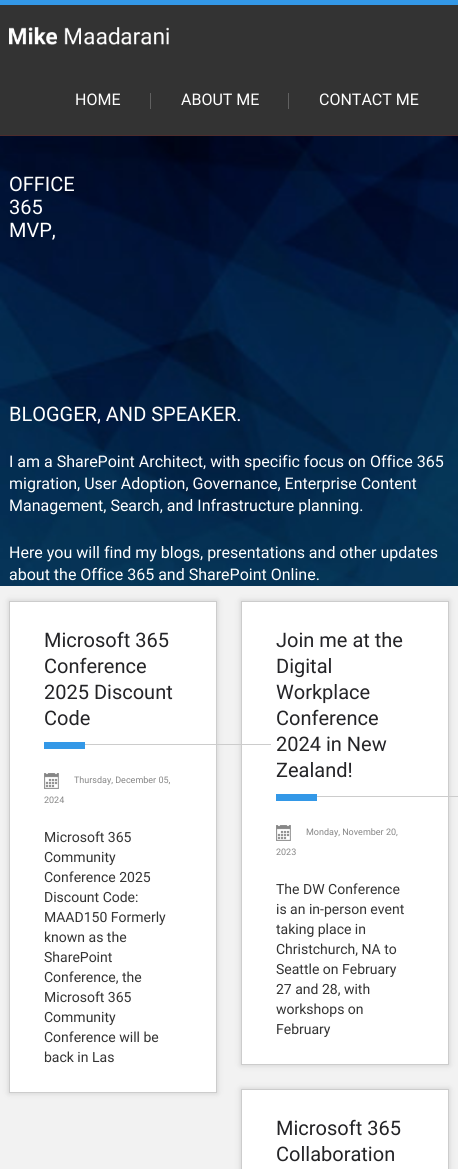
import math
import cairo


def round_path(ctx, x, y, w, h, r):
	ctx.new_sub_path()
	for i, (u, v) in enumerate([(x + w - r, y + h - r), (x + r, y + h - r), (x + r, y + r), (x + w - r, y + r)]):
		ctx.arc(u, v, r, i * math.pi / 2, (i + 1) * math.pi / 2)
	ctx.close_path()

def blur_box(ctx, x, y, w, h, r, blur, alpha):
	ctx.push_group_with_content(cairo.CONTENT_ALPHA)
	ctx.set_operator(cairo.OPERATOR_SOURCE)
	for i in range(15, -16, -2):
		e = blur * i / 6
		if min(w, h) + 2 * e > 0:
			ctx.set_source_rgba(0, 0, 0, alpha * math.erfc((i - 1) / 8.5) / 2)
			round_path(ctx, x - e, y - e, w + 2 * e, h + 2 * e, max(0, min(r + e + blur * .6, min(w, h) / 2 + e)))
			ctx.fill()
	ctx.mask(ctx.pop_group())

def paste(ctx, path, x, y, w, h):
	ctx.save()
	ctx.set_source_surface(cairo.ImageSurface.create_from_png(path), x, y)
	ctx.rectangle(x, y, w, h)
	ctx.fill()
	ctx.restore()

def draw(ctx):
	ctx.set_source_rgb(0.2, 0.596, 0.906)
	ctx.paint()
	ctx.set_source_rgb(0.2, 0.2, 0.2)
	ctx.rectangle(0, 5, 458, 130)
	ctx.fill()
	ctx.set_source_rgb(0.306, 0.173, 0.173)
	ctx.rectangle(0, 135, 458, 1)
	ctx.fill()
	paste(ctx, 'media/1.png', 9, 27, 160, 18)
	ctx.select_font_face('Roboto')
	ctx.set_font_size(16)
	ctx.set_source_rgb(1, 1, 1)
	ctx.move_to(75, 105)
	ctx.show_text('HOME')
	ctx.set_source_rgb(0.38, 0.38, 0.38)
	ctx.rectangle(150, 93, 1, 16)
	ctx.fill()
	ctx.set_source_rgb(1, 1, 1)
	ctx.move_to(181, 105)
	ctx.show_text('ABOUT ME')
	ctx.set_source_rgb(0.38, 0.38, 0.38)
	ctx.rectangle(288, 93, 1, 16)
	ctx.fill()
	ctx.set_source_rgb(1, 1, 1)
	ctx.move_to(319, 105)
	ctx.show_text('CONTACT ME')
	paste(ctx, 'media/2.png', 0, 136, 458, 450)
	ctx.set_font_size(20)
	for x, y, s in [
		(9, 191, 'OFFICE'),
		(9, 214, '365'),
		(9, 237, 'MVP,'),
		(9, 421, 'BLOGGER, AND SPEAKER.'),
	]:
		ctx.move_to(x, y)
		ctx.show_text(s)
	ctx.set_font_size(16)
	for x, y, s in [
		(9, 467, 'I am a SharePoint Architect, with specific focus on Office 365'),
		(9, 489, 'migration, User Adoption, Governance, Enterprise Content'),
		(9, 511, 'Management, Search, and Infrastructure planning.'),
		(9, 558, 'Here you will find my blogs, presentations and other updates'),
		(9, 580, 'about the Office 365 and SharePoint Online.'),
	]:
		ctx.move_to(x, y)
		ctx.show_text(s)
	ctx.set_source_rgb(0.949, 0.949, 0.949)
	ctx.rectangle(0, 586, 458, 583)
	ctx.fill()
	ctx.set_source_rgb(0.8, 0.8, 0.8)
	blur_box(ctx, 9, 601, 208, 492, 0, 3, 1)
	ctx.set_source_rgb(1, 1, 1)
	ctx.rectangle(9.5, 601.5, 207, 491)
	ctx.fill_preserve()
	ctx.set_source_rgb(0.8, 0.8, 0.8)
	ctx.set_line_width(1)
	ctx.stroke()
	ctx.set_font_size(20)
	ctx.set_source_rgb(0.141, 0.141, 0.153)
	for x, y, s in [
		(44, 647, 'Microsoft 365'),
		(44, 673, 'Conference'),
		(44, 699, '2025 Discount'),
		(44, 725, 'Code'),
	]:
		ctx.move_to(x, y)
		ctx.show_text(s)
	ctx.set_source_rgb(0.2, 0.596, 0.906)
	ctx.rectangle(44, 742, 41, 7)
	ctx.fill()
	ctx.set_source_rgb(0.8, 0.8, 0.8)
	blur_box(ctx, 241, 601, 208, 464, 0, 3, 1)
	ctx.set_source_rgb(1, 1, 1)
	ctx.rectangle(241.5, 601.5, 207, 463)
	ctx.fill_preserve()
	ctx.set_source_rgb(0.8, 0.8, 0.8)
	ctx.stroke()
	ctx.rectangle(85, 744, 186, 1)
	ctx.fill()
	paste(ctx, 'media/3.png', 44, 773, 15, 16)
	ctx.set_font_size(9)
	ctx.set_source_rgb(0.525, 0.525, 0.525)
	ctx.move_to(74, 783)
	ctx.show_text('Thursday, December 05,')
	ctx.move_to(44, 803)
	ctx.show_text('2024')
	ctx.set_font_size(14)
	ctx.set_source_rgb(0.2, 0.2, 0.2)
	for x, y, s in [
		(44, 842, 'Microsoft 365'),
		(44, 862, 'Community'),
		(44, 882, 'Conference 2025'),
		(44, 902, 'Discount Code:'),
		(44, 922, 'MAAD150 Formerly'),
		(44, 942, 'known as the'),
		(44, 962, 'SharePoint'),
		(44, 982, 'Conference, the'),
		(44, 1002, 'Microsoft 365'),
		(44, 1022, 'Community'),
		(44, 1042, 'Conference will be'),
		(44, 1062, 'back in Las'),
	]:
		ctx.move_to(x, y)
		ctx.show_text(s)
	ctx.set_font_size(20)
	ctx.set_source_rgb(0.141, 0.141, 0.153)
	for x, y, s in [
		(276, 647, 'Join me at the'),
		(276, 673, 'Digital'),
		(276, 699, 'Workplace'),
		(276, 725, 'Conference'),
		(276, 751, '2024 in New'),
		(276, 777, 'Zealand!'),
	]:
		ctx.move_to(x, y)
		ctx.show_text(s)
	ctx.set_source_rgb(0.2, 0.596, 0.906)
	ctx.rectangle(276, 794, 41, 7)
	ctx.fill()
	ctx.set_source_rgb(0.8, 0.8, 0.8)
	ctx.rectangle(317, 796, 141, 1)
	ctx.fill()
	paste(ctx, 'media/3.png', 276, 825, 15, 16)
	ctx.set_font_size(9)
	ctx.set_source_rgb(0.525, 0.525, 0.525)
	ctx.move_to(306, 835)
	ctx.show_text('Monday, November 20,')
	ctx.move_to(276, 855)
	ctx.show_text('2023')
	ctx.set_font_size(14)
	ctx.set_source_rgb(0.2, 0.2, 0.2)
	for x, y, s in [
		(276, 894, 'The DW Conference'),
		(276, 914, 'is an in-person event'),
		(276, 934, 'taking place in'),
		(276, 954, 'Christchurch, NA to'),
		(276, 974, 'Seattle on February'),
		(276, 994, '27 and 28, with'),
		(276, 1014, 'workshops on'),
		(276, 1034, 'February'),
	]:
		ctx.move_to(x, y)
		ctx.show_text(s)
	ctx.set_source_rgb(0.8, 0.8, 0.8)
	blur_box(ctx, 241, 1089, 208, 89, 0, 3, 1)
	ctx.set_source_rgb(1, 1, 1)
	ctx.rectangle(241.5, 1089.5, 207, 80)
	ctx.fill_preserve()
	ctx.set_source_rgb(0.8, 0.8, 0.8)
	ctx.stroke()
	ctx.set_font_size(20)
	ctx.set_source_rgb(0.141, 0.141, 0.153)
	ctx.move_to(276, 1135)
	ctx.show_text('Microsoft 365')
	ctx.move_to(276, 1161)
	ctx.show_text('Collaboration')


surface = cairo.ImageSurface(cairo.FORMAT_RGB24, 458, 1169)
ctx = cairo.Context(surface)
options = cairo.FontOptions()
options.set_hint_metrics(cairo.HINT_METRICS_OFF)
options.set_hint_style(cairo.HINT_STYLE_NONE)
ctx.set_font_options(options)
ctx.set_miter_limit(4)
draw(ctx)
surface.write_to_png('image.png')
